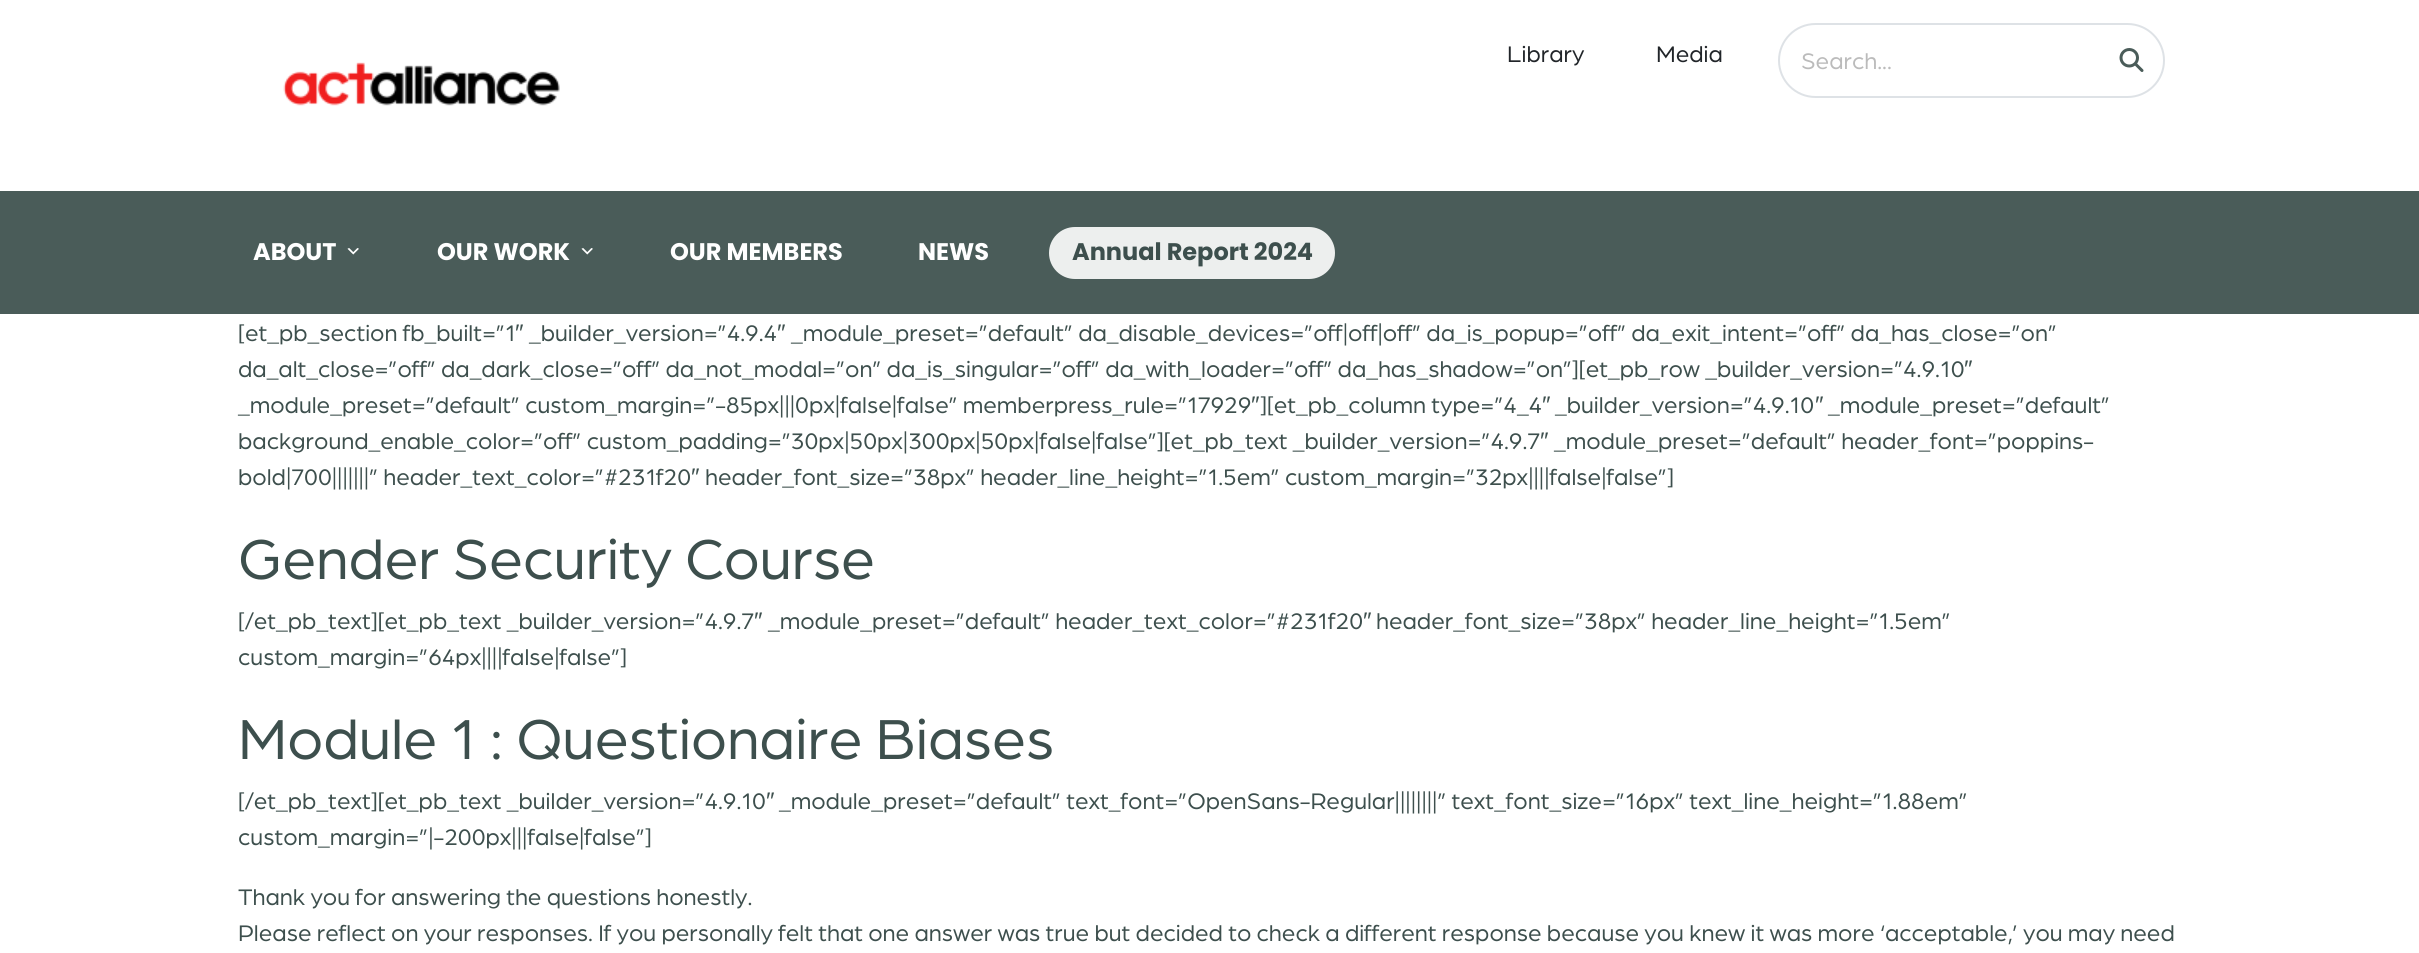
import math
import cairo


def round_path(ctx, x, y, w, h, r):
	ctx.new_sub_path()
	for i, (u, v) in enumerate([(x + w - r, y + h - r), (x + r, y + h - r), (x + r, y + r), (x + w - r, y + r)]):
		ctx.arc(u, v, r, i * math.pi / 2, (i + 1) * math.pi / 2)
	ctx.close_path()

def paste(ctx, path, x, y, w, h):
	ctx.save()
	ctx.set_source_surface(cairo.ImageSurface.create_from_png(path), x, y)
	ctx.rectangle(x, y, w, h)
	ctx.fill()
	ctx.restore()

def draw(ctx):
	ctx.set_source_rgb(1, 1, 1)
	ctx.paint()
	paste(ctx, 'media/1.png', 283, 62, 277, 44)
	ctx.select_font_face('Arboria')
	ctx.set_font_size(24)
	ctx.set_source_rgb(0.129, 0.145, 0.161)
	ctx.move_to(1507, 62)
	ctx.show_text('Library')
	ctx.move_to(1656, 62)
	ctx.show_text('Media')
	round_path(ctx, 1779, 24, 385, 73, 36.5)
	ctx.set_source_rgb(0.871, 0.886, 0.902)
	ctx.stroke()
	ctx.set_source_rgb(0.733, 0.733, 0.733)
	ctx.move_to(1801, 69)
	ctx.show_text('Search...')
	paste(ctx, 'media/2.png', 2119, 48, 25, 24)
	ctx.set_source_rgb(0.29, 0.361, 0.349)
	ctx.rectangle(0, 191, 2419, 123)
	ctx.fill()
	ctx.select_font_face('Poppins', cairo.FONT_SLANT_NORMAL, cairo.FONT_WEIGHT_BOLD)
	ctx.set_source_rgb(1, 1, 1)
	ctx.move_to(253, 260)
	ctx.show_text('ABOUT')
	paste(ctx, 'media/3.png', 347, 248, 12, 7)
	ctx.move_to(437, 260)
	ctx.show_text('OUR WORK')
	paste(ctx, 'media/3.png', 581, 248, 12, 7)
	ctx.move_to(670, 260)
	ctx.show_text('OUR MEMBERS')
	ctx.move_to(918, 260)
	ctx.show_text('NEWS')
	ctx.set_source_rgb(0.929, 0.937, 0.933)
	round_path(ctx, 1049, 227, 286, 52, 26)
	ctx.fill()
	ctx.set_source_rgb(0.239, 0.31, 0.302)
	ctx.move_to(1072, 260)
	ctx.show_text('Annual Report 2024')
	ctx.select_font_face('Arboria')
	ctx.move_to(238, 341)
	ctx.show_text('[et_pb_section fb_built=”1')
	ctx.select_font_face('Liberation Sans')
	ctx.move_to(515, 341)
	ctx.show_text('″')
	ctx.select_font_face('Arboria')
	ctx.move_to(529, 341)
	ctx.show_text('_builder_version=”4.9.4')
	ctx.select_font_face('Liberation Sans')
	ctx.move_to(777, 341)
	ctx.show_text('″')
	ctx.select_font_face('Arboria')
	ctx.move_to(791, 341)
	ctx.show_text('_module_preset=”default” da_disable_devices=”off|off|off” da_is_popup=”off” da_exit_intent=”off” da_has_close=”on”')
	ctx.move_to(238, 377)
	ctx.show_text('da_alt_close=”off” da_dark_close=”off” da_not_modal=”on” da_is_singular=”off” da_with_loader=”off” da_has_shadow=”on”][et_pb_row _builder_version=”4.9.10')
	ctx.select_font_face('Liberation Sans')
	ctx.move_to(1964, 377)
	ctx.show_text('″')
	ctx.select_font_face('Arboria')
	ctx.move_to(238, 413)
	ctx.show_text('_module_preset=”default” custom_margin=”-85px|||0px|false|false” memberpress_rule=”17929')
	ctx.select_font_face('Liberation Sans')
	ctx.move_to(1251, 413)
	ctx.show_text('″')
	ctx.select_font_face('Arboria')
	ctx.move_to(1260, 413)
	ctx.show_text('][et_pb_column type=”4_4')
	ctx.select_font_face('Liberation Sans')
	ctx.move_to(1542, 413)
	ctx.show_text('″')
	ctx.select_font_face('Arboria')
	ctx.move_to(1555, 413)
	ctx.show_text('_builder_version=”4.9.10')
	ctx.select_font_face('Liberation Sans')
	ctx.move_to(1815, 413)
	ctx.show_text('″')
	ctx.select_font_face('Arboria')
	ctx.move_to(1828, 413)
	ctx.show_text('_module_preset=”default”')
	ctx.move_to(238, 449)
	ctx.show_text('background_enable_color=”off” custom_padding=”30px|50px|300px|50px|false|false”][et_pb_text _builder_version=”4.9.7')
	ctx.select_font_face('Liberation Sans')
	ctx.move_to(1540, 449)
	ctx.show_text('″')
	ctx.select_font_face('Arboria')
	ctx.move_to(1554, 449)
	ctx.show_text('_module_preset=”default” header_font=”poppins-')
	ctx.move_to(238, 485)
	ctx.show_text('bold|700|||||||” header_text_color=”#231f20')
	ctx.select_font_face('Liberation Sans')
	ctx.move_to(691, 485)
	ctx.show_text('″')
	ctx.select_font_face('Arboria')
	ctx.move_to(705, 485)
	ctx.show_text('header_font_size=”38px” header_line_height=”1.5em” custom_margin=”32px||||false|false”]')
	ctx.set_font_size(60)
	ctx.move_to(238, 579)
	ctx.show_text('Gender Security Course')
	ctx.set_font_size(24)
	ctx.move_to(238, 629)
	ctx.show_text('[/et_pb_text][et_pb_text _builder_version=”4.9.7')
	ctx.select_font_face('Liberation Sans')
	ctx.move_to(754, 629)
	ctx.show_text('″')
	ctx.select_font_face('Arboria')
	ctx.move_to(768, 629)
	ctx.show_text('_module_preset=”default” header_text_color=”#231f20')
	ctx.select_font_face('Liberation Sans')
	ctx.move_to(1363, 629)
	ctx.show_text('″')
	ctx.select_font_face('Arboria')
	ctx.move_to(1376, 629)
	ctx.show_text('header_font_size=”38px” header_line_height=”1.5em”')
	ctx.move_to(238, 665)
	ctx.show_text('custom_margin=”64px||||false|false”]')
	ctx.set_font_size(60)
	ctx.move_to(238, 759)
	ctx.show_text('Module 1 : Questionaire Biases')
	ctx.set_font_size(24)
	ctx.move_to(238, 809)
	ctx.show_text('[/et_pb_text][et_pb_text _builder_version=”4.9.10')
	ctx.select_font_face('Liberation Sans')
	ctx.move_to(766, 809)
	ctx.show_text('″')
	ctx.select_font_face('Arboria')
	for x, y, s in [
		(779, 809, '_module_preset=”default” text_font=”OpenSans-Regular||||||||” text_font_size=”16px” text_line_height=”1.88em”'),
		(238, 845, 'custom_margin=”|-200px|||false|false”]'),
		(238, 905, 'Thank you for answering the questions honestly.'),
		(238, 941, 'Please reflect on your responses. If you personally felt that one answer was true but decided to check a different response because you knew it was more ‘acceptable,’ you may need'),
	]:
		ctx.move_to(x, y)
		ctx.show_text(s)


surface = cairo.ImageSurface(cairo.FORMAT_RGB24, 2419, 953)
ctx = cairo.Context(surface)
options = cairo.FontOptions()
options.set_hint_metrics(cairo.HINT_METRICS_OFF)
options.set_hint_style(cairo.HINT_STYLE_NONE)
ctx.set_font_options(options)
ctx.set_miter_limit(4)
draw(ctx)
surface.write_to_png('image.png')
